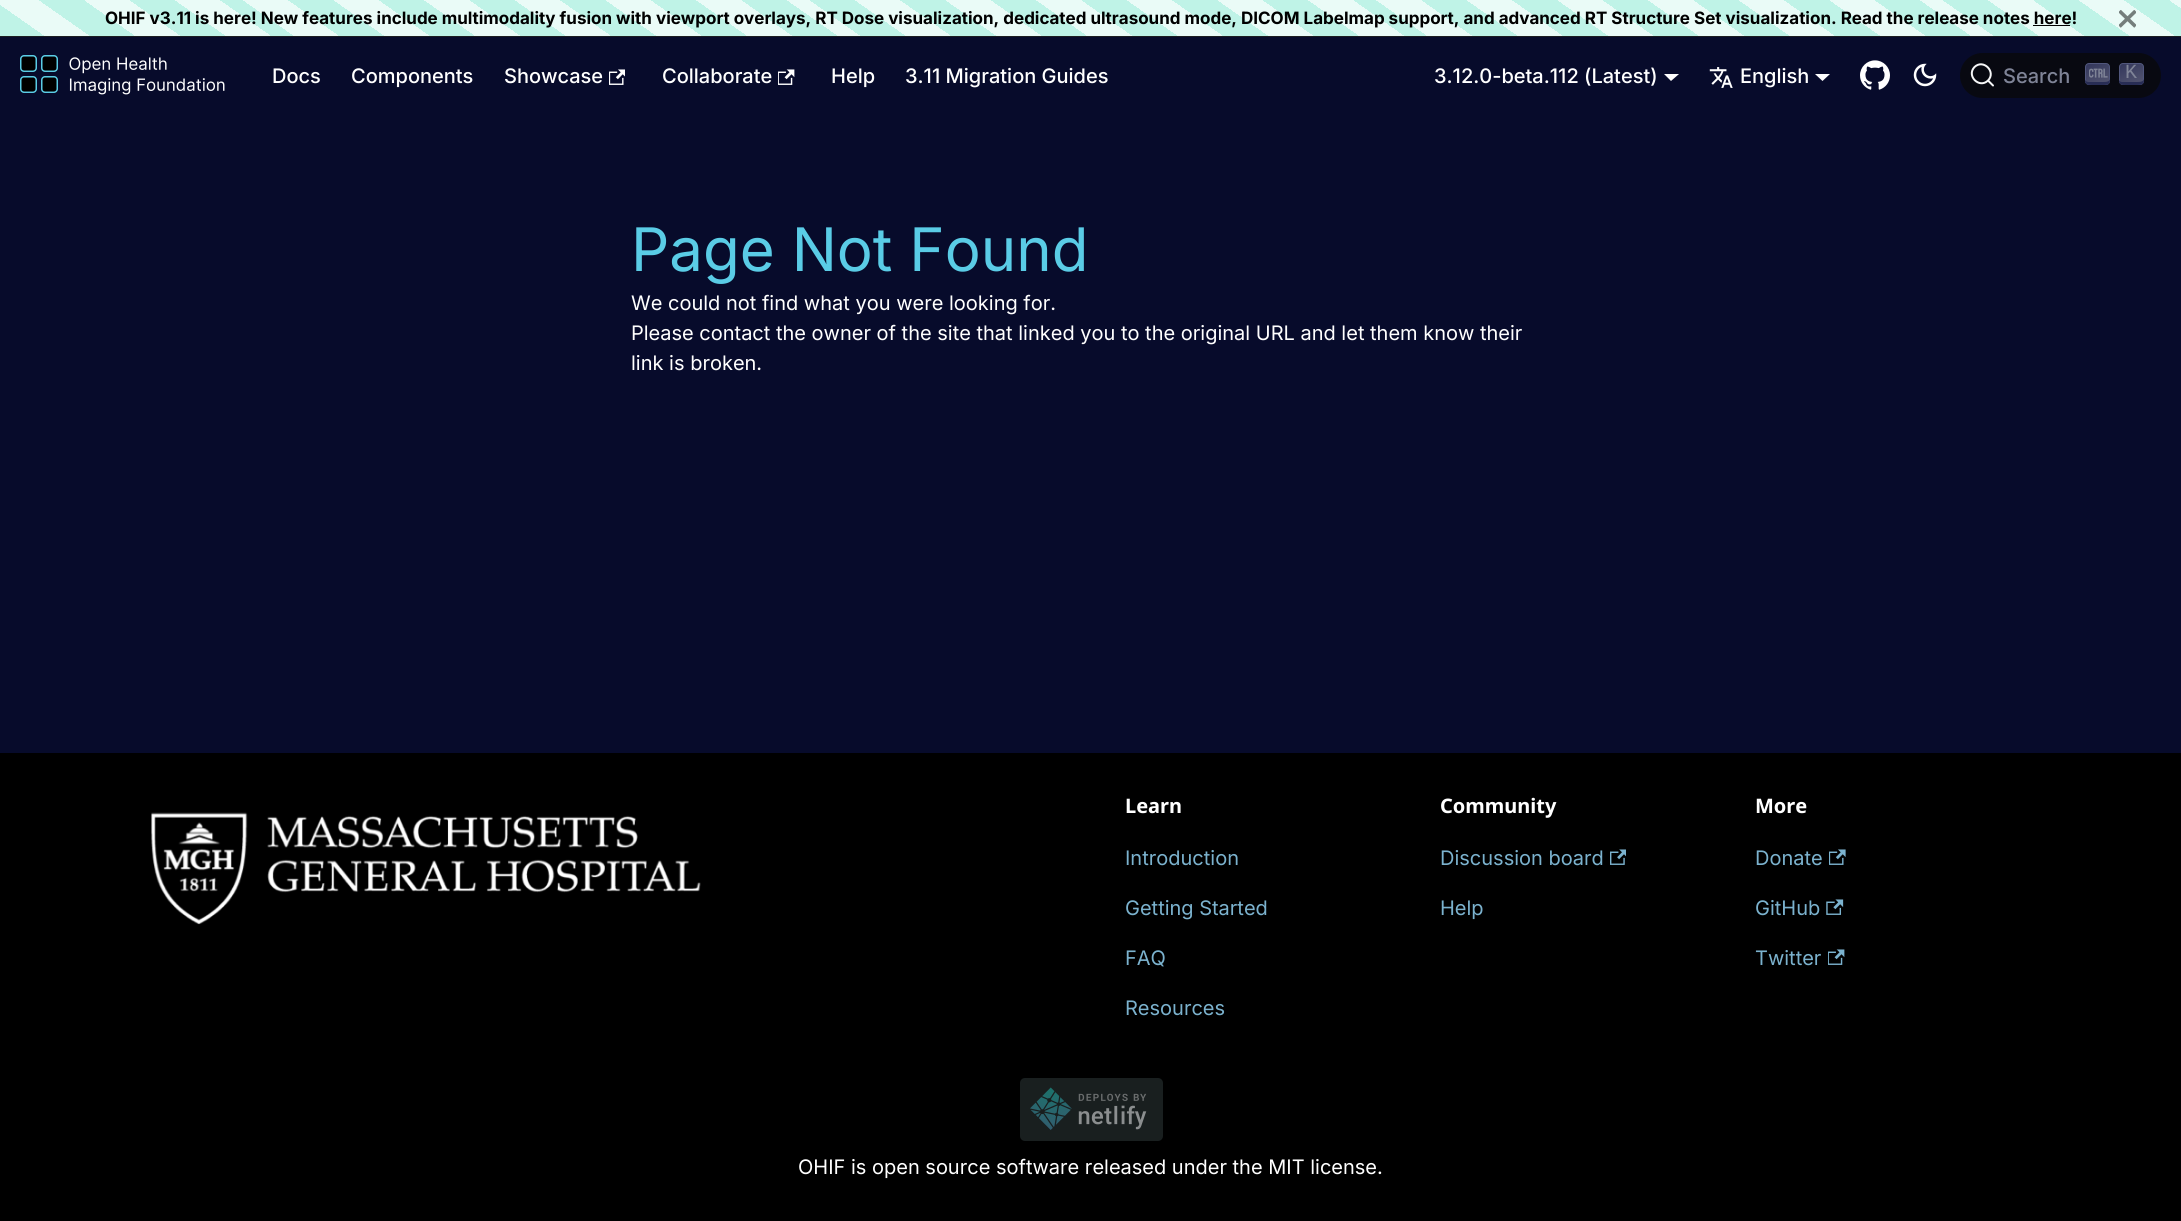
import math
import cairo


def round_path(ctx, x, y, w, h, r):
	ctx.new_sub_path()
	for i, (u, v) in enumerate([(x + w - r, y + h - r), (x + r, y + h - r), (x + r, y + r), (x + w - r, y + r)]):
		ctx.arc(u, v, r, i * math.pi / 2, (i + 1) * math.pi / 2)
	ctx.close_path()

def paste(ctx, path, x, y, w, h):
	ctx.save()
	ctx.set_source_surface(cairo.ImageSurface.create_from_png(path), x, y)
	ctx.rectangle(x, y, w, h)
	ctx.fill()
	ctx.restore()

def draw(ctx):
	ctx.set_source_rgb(0.031, 0.043, 0.169)
	ctx.paint()
	gradient = cairo.LinearGradient(723, 543, 1469, -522)
	gradient.add_color_stop_rgba(0, 0.749, 0.953, 0.906, 1)
	gradient.add_color_stop_rgba(0.02, 0.749, 0.953, 0.906, 1)
	gradient.add_color_stop_rgba(0.02, 0.918, 0.984, 0.969, 1)
	gradient.add_color_stop_rgba(0.04, 0.918, 0.984, 0.969, 1)
	gradient.add_color_stop_rgba(0.04, 0.749, 0.953, 0.906, 1)
	gradient.add_color_stop_rgba(0.06, 0.749, 0.953, 0.906, 1)
	gradient.add_color_stop_rgba(0.06, 0.918, 0.984, 0.969, 1)
	gradient.add_color_stop_rgba(0.08, 0.918, 0.984, 0.969, 1)
	gradient.add_color_stop_rgba(0.08, 0.749, 0.953, 0.906, 1)
	gradient.add_color_stop_rgba(0.1, 0.749, 0.953, 0.906, 1)
	gradient.add_color_stop_rgba(0.1, 0.918, 0.984, 0.969, 1)
	gradient.add_color_stop_rgba(0.12, 0.918, 0.984, 0.969, 1)
	gradient.add_color_stop_rgba(0.12, 0.749, 0.953, 0.906, 1)
	gradient.add_color_stop_rgba(0.13, 0.749, 0.953, 0.906, 1)
	gradient.add_color_stop_rgba(0.13, 0.918, 0.984, 0.969, 1)
	gradient.add_color_stop_rgba(0.15, 0.918, 0.984, 0.969, 1)
	gradient.add_color_stop_rgba(0.15, 0.749, 0.953, 0.906, 1)
	gradient.add_color_stop_rgba(0.17, 0.749, 0.953, 0.906, 1)
	gradient.add_color_stop_rgba(0.17, 0.918, 0.984, 0.969, 1)
	gradient.add_color_stop_rgba(0.19, 0.918, 0.984, 0.969, 1)
	gradient.add_color_stop_rgba(0.19, 0.749, 0.953, 0.906, 1)
	gradient.add_color_stop_rgba(0.21, 0.749, 0.953, 0.906, 1)
	gradient.add_color_stop_rgba(0.21, 0.918, 0.984, 0.969, 1)
	gradient.add_color_stop_rgba(0.23, 0.918, 0.984, 0.969, 1)
	gradient.add_color_stop_rgba(0.23, 0.749, 0.953, 0.906, 1)
	gradient.add_color_stop_rgba(0.25, 0.749, 0.953, 0.906, 1)
	gradient.add_color_stop_rgba(0.25, 0.918, 0.984, 0.969, 1)
	gradient.add_color_stop_rgba(0.27, 0.918, 0.984, 0.969, 1)
	gradient.add_color_stop_rgba(0.27, 0.749, 0.953, 0.906, 1)
	gradient.add_color_stop_rgba(0.29, 0.749, 0.953, 0.906, 1)
	gradient.add_color_stop_rgba(0.29, 0.918, 0.984, 0.969, 1)
	gradient.add_color_stop_rgba(0.31, 0.918, 0.984, 0.969, 1)
	gradient.add_color_stop_rgba(0.31, 0.749, 0.953, 0.906, 1)
	gradient.add_color_stop_rgba(0.33, 0.749, 0.953, 0.906, 1)
	gradient.add_color_stop_rgba(0.33, 0.918, 0.984, 0.969, 1)
	gradient.add_color_stop_rgba(0.35, 0.918, 0.984, 0.969, 1)
	gradient.add_color_stop_rgba(0.35, 0.749, 0.953, 0.906, 1)
	gradient.add_color_stop_rgba(0.37, 0.749, 0.953, 0.906, 1)
	gradient.add_color_stop_rgba(0.37, 0.918, 0.984, 0.969, 1)
	gradient.add_color_stop_rgba(0.38, 0.918, 0.984, 0.969, 1)
	gradient.add_color_stop_rgba(0.38, 0.749, 0.953, 0.906, 1)
	gradient.add_color_stop_rgba(0.4, 0.749, 0.953, 0.906, 1)
	gradient.add_color_stop_rgba(0.4, 0.918, 0.984, 0.969, 1)
	gradient.add_color_stop_rgba(0.42, 0.918, 0.984, 0.969, 1)
	gradient.add_color_stop_rgba(0.42, 0.749, 0.953, 0.906, 1)
	gradient.add_color_stop_rgba(0.44, 0.749, 0.953, 0.906, 1)
	gradient.add_color_stop_rgba(0.44, 0.918, 0.984, 0.969, 1)
	gradient.add_color_stop_rgba(0.46, 0.918, 0.984, 0.969, 1)
	gradient.add_color_stop_rgba(0.46, 0.749, 0.953, 0.906, 1)
	gradient.add_color_stop_rgba(0.48, 0.749, 0.953, 0.906, 1)
	gradient.add_color_stop_rgba(0.48, 0.918, 0.984, 0.969, 1)
	gradient.add_color_stop_rgba(0.5, 0.918, 0.984, 0.969, 1)
	gradient.add_color_stop_rgba(0.5, 0.749, 0.953, 0.906, 1)
	gradient.add_color_stop_rgba(0.52, 0.749, 0.953, 0.906, 1)
	gradient.add_color_stop_rgba(0.52, 0.918, 0.984, 0.969, 1)
	gradient.add_color_stop_rgba(0.54, 0.918, 0.984, 0.969, 1)
	gradient.add_color_stop_rgba(0.54, 0.749, 0.953, 0.906, 1)
	gradient.add_color_stop_rgba(0.56, 0.749, 0.953, 0.906, 1)
	gradient.add_color_stop_rgba(0.56, 0.918, 0.984, 0.969, 1)
	gradient.add_color_stop_rgba(0.58, 0.918, 0.984, 0.969, 1)
	gradient.add_color_stop_rgba(0.58, 0.749, 0.953, 0.906, 1)
	gradient.add_color_stop_rgba(0.6, 0.749, 0.953, 0.906, 1)
	gradient.add_color_stop_rgba(0.6, 0.918, 0.984, 0.969, 1)
	gradient.add_color_stop_rgba(0.62, 0.918, 0.984, 0.969, 1)
	gradient.add_color_stop_rgba(0.62, 0.749, 0.953, 0.906, 1)
	gradient.add_color_stop_rgba(0.63, 0.749, 0.953, 0.906, 1)
	gradient.add_color_stop_rgba(0.63, 0.918, 0.984, 0.969, 1)
	gradient.add_color_stop_rgba(0.65, 0.918, 0.984, 0.969, 1)
	gradient.add_color_stop_rgba(0.65, 0.749, 0.953, 0.906, 1)
	gradient.add_color_stop_rgba(0.67, 0.749, 0.953, 0.906, 1)
	gradient.add_color_stop_rgba(0.67, 0.918, 0.984, 0.969, 1)
	gradient.add_color_stop_rgba(0.69, 0.918, 0.984, 0.969, 1)
	gradient.add_color_stop_rgba(0.69, 0.749, 0.953, 0.906, 1)
	gradient.add_color_stop_rgba(0.71, 0.749, 0.953, 0.906, 1)
	gradient.add_color_stop_rgba(0.71, 0.918, 0.984, 0.969, 1)
	gradient.add_color_stop_rgba(0.73, 0.918, 0.984, 0.969, 1)
	gradient.add_color_stop_rgba(0.73, 0.749, 0.953, 0.906, 1)
	gradient.add_color_stop_rgba(0.75, 0.749, 0.953, 0.906, 1)
	gradient.add_color_stop_rgba(0.75, 0.918, 0.984, 0.969, 1)
	gradient.add_color_stop_rgba(0.77, 0.918, 0.984, 0.969, 1)
	gradient.add_color_stop_rgba(0.77, 0.749, 0.953, 0.906, 1)
	gradient.add_color_stop_rgba(0.79, 0.749, 0.953, 0.906, 1)
	gradient.add_color_stop_rgba(0.79, 0.918, 0.984, 0.969, 1)
	gradient.add_color_stop_rgba(0.81, 0.918, 0.984, 0.969, 1)
	gradient.add_color_stop_rgba(0.81, 0.749, 0.953, 0.906, 1)
	gradient.add_color_stop_rgba(0.83, 0.749, 0.953, 0.906, 1)
	gradient.add_color_stop_rgba(0.83, 0.918, 0.984, 0.969, 1)
	gradient.add_color_stop_rgba(0.85, 0.918, 0.984, 0.969, 1)
	gradient.add_color_stop_rgba(0.85, 0.749, 0.953, 0.906, 1)
	gradient.add_color_stop_rgba(0.87, 0.749, 0.953, 0.906, 1)
	gradient.add_color_stop_rgba(0.87, 0.918, 0.984, 0.969, 1)
	gradient.add_color_stop_rgba(0.88, 0.918, 0.984, 0.969, 1)
	gradient.add_color_stop_rgba(0.88, 0.749, 0.953, 0.906, 1)
	gradient.add_color_stop_rgba(0.9, 0.749, 0.953, 0.906, 1)
	gradient.add_color_stop_rgba(0.9, 0.918, 0.984, 0.969, 1)
	gradient.add_color_stop_rgba(0.92, 0.918, 0.984, 0.969, 1)
	gradient.add_color_stop_rgba(0.92, 0.749, 0.953, 0.906, 1)
	gradient.add_color_stop_rgba(0.94, 0.749, 0.953, 0.906, 1)
	gradient.add_color_stop_rgba(0.94, 0.918, 0.984, 0.969, 1)
	gradient.add_color_stop_rgba(0.96, 0.918, 0.984, 0.969, 1)
	gradient.add_color_stop_rgba(0.96, 0.749, 0.953, 0.906, 1)
	gradient.add_color_stop_rgba(0.98, 0.749, 0.953, 0.906, 1)
	gradient.add_color_stop_rgba(0.98, 0.918, 0.984, 0.969, 1)
	gradient.add_color_stop_rgba(1, 0.918, 0.984, 0.969, 1)
	ctx.set_source(gradient)
	ctx.rectangle(0, 0, 2181, 36)
	ctx.fill()
	ctx.set_source_rgb(0.11, 0.118, 0.129)
	ctx.rectangle(0, 36, 2181, 1)
	ctx.fill()
	ctx.select_font_face('Inter', cairo.FONT_SLANT_NORMAL, cairo.FONT_WEIGHT_BOLD)
	ctx.set_font_size(17)
	ctx.set_source_rgb(0, 0, 0)
	ctx.move_to(105, 24)
	ctx.show_text('OHIF v3.11 is here! New features include multimodality fusion with viewport overlays, RT Dose visualization, dedicated ultrasound mode, DICOM Labelmap support, and advanced RT Structure Set visualization. Read the release notes here!')
	ctx.rectangle(2033, 25, 37, 1)
	ctx.fill()
	ctx.save()
	ctx.rectangle(2119, 10, 17, 18)
	ctx.clip()
	ctx.new_path()
	ctx.move_to(2119.5, 11)
	ctx.line_to(2135.5, 26.5)
	ctx.move_to(2135.5, 11)
	ctx.line_to(2119.5, 26.5)
	ctx.set_source_rgb(0.459, 0.494, 0.486)
	ctx.set_line_width(3.6)
	ctx.stroke()
	ctx.restore()
	paste(ctx, 'media/1.png', 20, 55, 205, 40)
	ctx.select_font_face('Inter Medium')
	ctx.set_font_size(20)
	ctx.set_source_rgb(1, 1, 1)
	for x, y, s in [
		(272, 83, 'Docs'),
		(351, 83, 'Components'),
		(504, 83, 'Showcase'),
	]:
		ctx.move_to(x, y)
		ctx.show_text(s)
	paste(ctx, 'media/2.png', 609, 69, 16, 16)
	ctx.move_to(662, 83)
	ctx.show_text('Collaborate')
	paste(ctx, 'media/3.png', 778, 69, 17, 16)
	for x, y, s in [
		(831, 83, 'Help'),
		(905, 83, '3.11 Migration Guides'),
		(1434, 83, '3.12.0-beta.112 (Latest)'),
	]:
		ctx.move_to(x, y)
		ctx.show_text(s)
	ctx.new_path()
	ctx.move_to(1664, 74)
	ctx.line_to(1679, 74)
	ctx.line_to(1671, 81)
	ctx.close_path()
	ctx.fill()
	paste(ctx, 'media/4.png', 1709, 67, 24, 21)
	ctx.move_to(1740, 83)
	ctx.show_text('English')
	ctx.new_path()
	ctx.move_to(1815, 74)
	ctx.line_to(1830, 74)
	ctx.line_to(1822.5, 81)
	ctx.close_path()
	ctx.fill()
	paste(ctx, 'media/5.png', 1860, 60, 30, 30)
	paste(ctx, 'media/6.png', 1913, 63, 24, 24)
	ctx.set_source_rgb(0.035, 0.039, 0.067)
	round_path(ctx, 1960, 53, 201, 45, 22.5)
	ctx.fill()
	ctx.new_path()
	ctx.move_to(1988, 80.5)
	ctx.line_to(1993, 85.5)
	ctx.line_to(1988, 80.5)
	ctx.curve_to(1979.5, 89, 1966, 76, 1974.5, 67)
	ctx.curve_to(1983.5, 58.5, 1996.5, 72, 1988, 80.5)
	ctx.close_path()
	ctx.set_source_rgb(0.961, 0.965, 0.969)
	ctx.set_line_cap(cairo.LINE_CAP_ROUND)
	ctx.set_line_join(cairo.LINE_JOIN_ROUND)
	ctx.stroke()
	ctx.set_source_rgb(0.498, 0.518, 0.592)
	ctx.move_to(2003, 83)
	ctx.show_text('Search')
	gradient = cairo.LinearGradient(2104, 88, 2091, 60)
	gradient.add_color_stop_rgba(0, 0.337, 0.345, 0.447, 1)
	gradient.add_color_stop_rgba(1, 0.192, 0.208, 0.357, 1)
	ctx.set_source(gradient)
	round_path(ctx, 2085.5, 63.5, 24, 21, 3.5)
	ctx.fill_preserve()
	ctx.set_source_rgb(0.318, 0.341, 0.49)
	ctx.set_line_width(1)
	ctx.set_line_cap(cairo.LINE_CAP_BUTT)
	ctx.set_line_join(cairo.LINE_JOIN_MITER)
	ctx.stroke()
	ctx.set_source_rgb(0.157, 0.176, 0.333)
	ctx.new_path()
	ctx.move_to(2110, 79)
	ctx.curve_to(2109.5, 81, 2108, 82, 2103, 82)
	ctx.line_to(2089, 82)
	ctx.curve_to(2086.5, 82, 2085.5, 81, 2085, 79.5)
	ctx.curve_to(2085, 84.5, 2087, 85, 2092, 85)
	ctx.line_to(2103, 85)
	ctx.curve_to(2108.5, 85, 2110, 84.5, 2110, 79)
	ctx.close_path()
	ctx.fill()
	paste(ctx, 'media/7.png', 2089, 68, 19, 10)
	gradient = cairo.LinearGradient(2138, 88, 2124, 60)
	gradient.add_color_stop_rgba(0, 0.337, 0.345, 0.447, 1)
	gradient.add_color_stop_rgba(1, 0.192, 0.208, 0.357, 1)
	ctx.set_source(gradient)
	round_path(ctx, 2119.5, 63.5, 24, 21, 3.5)
	ctx.fill_preserve()
	ctx.set_source_rgb(0.318, 0.341, 0.49)
	ctx.stroke()
	ctx.set_source_rgb(0.157, 0.176, 0.333)
	ctx.new_path()
	ctx.move_to(2144, 79)
	ctx.curve_to(2143.5, 81, 2142, 82, 2137, 82)
	ctx.line_to(2122, 82)
	ctx.curve_to(2120.5, 82, 2119.5, 81, 2119, 80)
	ctx.curve_to(2119, 85, 2121.5, 85, 2126, 85)
	ctx.line_to(2137, 85)
	ctx.curve_to(2142.5, 85, 2144, 84.5, 2144, 79)
	ctx.close_path()
	ctx.fill()
	ctx.select_font_face('Liberation Mono')
	ctx.set_source_rgb(0.498, 0.518, 0.592)
	ctx.move_to(2125, 78)
	ctx.show_text('K')
	ctx.select_font_face('Inter')
	ctx.set_font_size(60)
	ctx.set_source_rgb(0.353, 0.8, 0.902)
	ctx.move_to(631, 271)
	ctx.show_text('Page Not Found')
	ctx.set_font_size(20)
	ctx.set_source_rgb(1, 1, 1)
	for x, y, s in [
		(631, 310, 'We could not find what you were looking for.'),
		(631, 340, 'Please contact the owner of the site that linked you to the original URL and let them know their'),
		(631, 370, 'link is broken.'),
	]:
		ctx.move_to(x, y)
		ctx.show_text(s)
	ctx.set_source_rgb(0, 0, 0)
	ctx.rectangle(0, 753, 2181, 468)
	ctx.fill()
	paste(ctx, 'media/8.png', 151, 812, 550, 113)
	ctx.select_font_face('Noto Sans', cairo.FONT_SLANT_NORMAL, cairo.FONT_WEIGHT_BOLD)
	ctx.set_source_rgb(1, 1, 1)
	ctx.move_to(1125, 813)
	ctx.show_text('Learn')
	ctx.select_font_face('Inter')
	ctx.set_source_rgb(0.482, 0.698, 0.808)
	for x, y, s in [
		(1125, 865, 'Introduction'),
		(1125, 915, 'Getting Started'),
		(1125, 965, 'FAQ'),
		(1125, 1015, 'Resources'),
	]:
		ctx.move_to(x, y)
		ctx.show_text(s)
	ctx.select_font_face('Noto Sans', cairo.FONT_SLANT_NORMAL, cairo.FONT_WEIGHT_BOLD)
	ctx.set_source_rgb(1, 1, 1)
	ctx.move_to(1440, 813)
	ctx.show_text('Community')
	ctx.select_font_face('Inter')
	ctx.set_source_rgb(0.482, 0.698, 0.808)
	ctx.move_to(1440, 865)
	ctx.show_text('Discussion board')
	paste(ctx, 'media/9.png', 1610, 849, 16, 16)
	ctx.move_to(1440, 915)
	ctx.show_text('Help')
	ctx.select_font_face('Noto Sans', cairo.FONT_SLANT_NORMAL, cairo.FONT_WEIGHT_BOLD)
	ctx.set_source_rgb(1, 1, 1)
	ctx.move_to(1755, 813)
	ctx.show_text('More')
	ctx.select_font_face('Inter')
	ctx.set_source_rgb(0.482, 0.698, 0.808)
	ctx.move_to(1755, 865)
	ctx.show_text('Donate')
	paste(ctx, 'media/10.png', 1829, 849, 17, 16)
	ctx.move_to(1755, 915)
	ctx.show_text('GitHub')
	paste(ctx, 'media/11.png', 1826, 899, 18, 16)
	ctx.move_to(1755, 965)
	ctx.show_text('Twitter')
	paste(ctx, 'media/12.png', 1828, 949, 17, 16)
	paste(ctx, 'media/13.png', 1020, 1078, 143, 63)
	ctx.set_source_rgb(1, 1, 1)
	ctx.move_to(798, 1174)
	ctx.show_text('OHIF is open source software released under the MIT license.')


surface = cairo.ImageSurface(cairo.FORMAT_RGB24, 2181, 1221)
ctx = cairo.Context(surface)
options = cairo.FontOptions()
options.set_hint_metrics(cairo.HINT_METRICS_OFF)
options.set_hint_style(cairo.HINT_STYLE_NONE)
ctx.set_font_options(options)
ctx.set_miter_limit(4)
draw(ctx)
surface.write_to_png('image.png')
